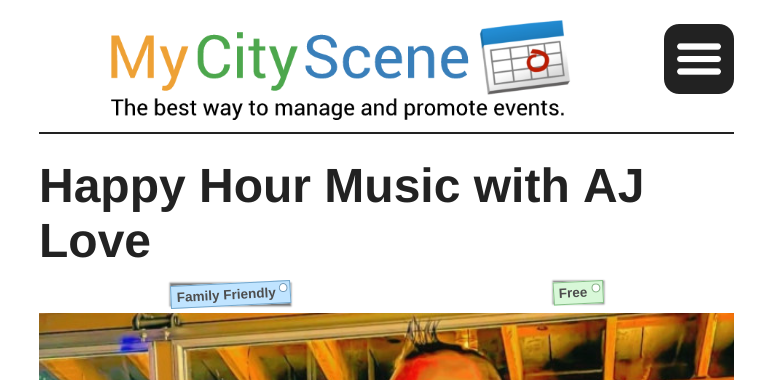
import math
import cairo


def round_path(ctx, x, y, w, h, r):
	ctx.new_sub_path()
	for i, (u, v) in enumerate([(x + w - r, y + h - r), (x + r, y + h - r), (x + r, y + r), (x + w - r, y + r)]):
		ctx.arc(u, v, r, i * math.pi / 2, (i + 1) * math.pi / 2)
	ctx.close_path()

def blur_box(ctx, x, y, w, h, r, blur, alpha):
	ctx.push_group_with_content(cairo.CONTENT_ALPHA)
	ctx.set_operator(cairo.OPERATOR_SOURCE)
	for i in range(15, -16, -2):
		e = blur * i / 6
		if min(w, h) + 2 * e > 0:
			ctx.set_source_rgba(0, 0, 0, alpha * math.erfc((i - 1) / 8.5) / 2)
			round_path(ctx, x - e, y - e, w + 2 * e, h + 2 * e, max(0, min(r + e + blur * .6, min(w, h) / 2 + e)))
			ctx.fill()
	ctx.mask(ctx.pop_group())

def paste(ctx, path, x, y, w, h):
	ctx.save()
	ctx.set_source_surface(cairo.ImageSurface.create_from_png(path), x, y)
	ctx.rectangle(x, y, w, h)
	ctx.fill()
	ctx.restore()

def draw(ctx):
	ctx.set_source_rgb(1, 1, 1)
	ctx.paint()
	ctx.set_source_rgb(0.133, 0.133, 0.133)
	round_path(ctx, 669, 29, 60, 60, 10)
	ctx.fill_preserve()
	ctx.set_line_width(10)
	ctx.stroke()
	paste(ctx, 'media/1.png', 677, 43, 44, 32)
	paste(ctx, 'media/2.png', 111, 20, 460, 100)
	ctx.rectangle(39, 132, 695, 2)
	ctx.fill()
	ctx.select_font_face('Liberation Sans', cairo.FONT_SLANT_NORMAL, cairo.FONT_WEIGHT_BOLD)
	ctx.set_font_size(48)
	ctx.move_to(39, 202)
	ctx.show_text('Happy Hour Music with AJ')
	ctx.move_to(39, 257)
	ctx.show_text('Love')
	ctx.save()
	ctx.set_fill_rule(cairo.FILL_RULE_EVEN_ODD)
	ctx.new_path()
	ctx.move_to(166, 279)
	ctx.line_to(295, 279)
	ctx.line_to(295, 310)
	ctx.line_to(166, 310)
	ctx.close_path()
	ctx.move_to(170, 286)
	ctx.line_to(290, 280)
	ctx.line_to(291.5, 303)
	ctx.line_to(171, 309)
	ctx.close_path()
	ctx.clip()
	ctx.set_source_rgb(0.439, 0.439, 0.439)
	blur_box(ctx, 170, 283, 121, 23, 0, 1, 1)
	ctx.restore()
	ctx.set_source_rgba(0.518, 0.796, 1, 0.51)
	ctx.new_path()
	ctx.move_to(170, 286)
	ctx.line_to(290, 280)
	ctx.line_to(291, 303)
	ctx.line_to(171, 309)
	ctx.close_path()
	ctx.fill()
	ctx.new_path()
	ctx.move_to(170.5, 286.5)
	ctx.line_to(289.5, 280.5)
	ctx.line_to(291, 302.5)
	ctx.line_to(171.5, 308.5)
	ctx.close_path()
	ctx.set_source_rgb(0.455, 0.655, 0.8)
	ctx.set_line_width(1)
	ctx.stroke()
	ctx.set_font_size(13.5)
	ctx.set_source_rgb(0.302, 0.302, 0.302)
	ctx.save()
	ctx.translate(177, 302)
	ctx.rotate(-3 * math.pi / 180)
	ctx.move_to(0, 0)
	ctx.show_text('Family Friendly')
	ctx.restore()
	ctx.set_source_rgb(1, 1, 1)
	ctx.new_path()
	ctx.move_to(283, 283)
	ctx.curve_to(288.5, 283, 289, 292, 283.5, 292)
	ctx.curve_to(277.5, 292.5, 277, 283.5, 283, 283)
	ctx.close_path()
	ctx.fill()
	ctx.new_path()
	ctx.move_to(283, 283.5)
	ctx.curve_to(288, 283.5, 288.5, 291.5, 283.5, 291.5)
	ctx.curve_to(278, 292, 278, 284, 283, 283.5)
	ctx.close_path()
	ctx.set_source_rgb(0.435, 0.604, 0.729)
	ctx.stroke()
	ctx.save()
	ctx.set_fill_rule(cairo.FILL_RULE_EVEN_ODD)
	ctx.new_path()
	ctx.move_to(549, 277)
	ctx.line_to(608, 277)
	ctx.line_to(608, 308)
	ctx.line_to(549, 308)
	ctx.close_path()
	ctx.move_to(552.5, 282.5)
	ctx.line_to(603, 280)
	ctx.line_to(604, 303)
	ctx.line_to(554, 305.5)
	ctx.close_path()
	ctx.clip()
	ctx.set_source_rgb(0.439, 0.439, 0.439)
	blur_box(ctx, 553, 281, 51, 23, 0, 1, 1)
	ctx.restore()
	ctx.set_source_rgba(0.698, 0.949, 0.702, 0.51)
	ctx.new_path()
	ctx.move_to(553, 283)
	ctx.line_to(603, 280)
	ctx.line_to(604, 303)
	ctx.line_to(554, 306)
	ctx.close_path()
	ctx.fill()
	ctx.new_path()
	ctx.move_to(553, 283)
	ctx.line_to(602.5, 280.5)
	ctx.line_to(603.5, 302.5)
	ctx.line_to(554.5, 305)
	ctx.close_path()
	ctx.set_source_rgb(0.529, 0.749, 0.533)
	ctx.stroke()
	ctx.set_source_rgb(0.302, 0.302, 0.302)
	ctx.save()
	ctx.translate(559, 298)
	ctx.rotate(-3 * math.pi / 180)
	ctx.move_to(0, 0)
	ctx.show_text('Free')
	ctx.restore()
	ctx.set_source_rgb(1, 1, 1)
	ctx.new_path()
	ctx.move_to(595.5, 283.5)
	ctx.curve_to(601.5, 283, 602, 292, 596, 292.5)
	ctx.curve_to(590.5, 292.5, 590, 283.5, 595.5, 283.5)
	ctx.close_path()
	ctx.fill()
	ctx.new_path()
	ctx.move_to(595.5, 284)
	ctx.curve_to(601, 283.5, 601.5, 291.5, 596, 292)
	ctx.curve_to(591, 292, 590.5, 284, 595.5, 284)
	ctx.close_path()
	ctx.set_source_rgb(0.502, 0.694, 0.502)
	ctx.stroke()
	paste(ctx, 'media/3.png', 39, 313, 695, 67)


surface = cairo.ImageSurface(cairo.FORMAT_RGB24, 773, 380)
ctx = cairo.Context(surface)
options = cairo.FontOptions()
options.set_hint_metrics(cairo.HINT_METRICS_OFF)
options.set_hint_style(cairo.HINT_STYLE_NONE)
ctx.set_font_options(options)
ctx.set_miter_limit(4)
draw(ctx)
surface.write_to_png('image.png')
